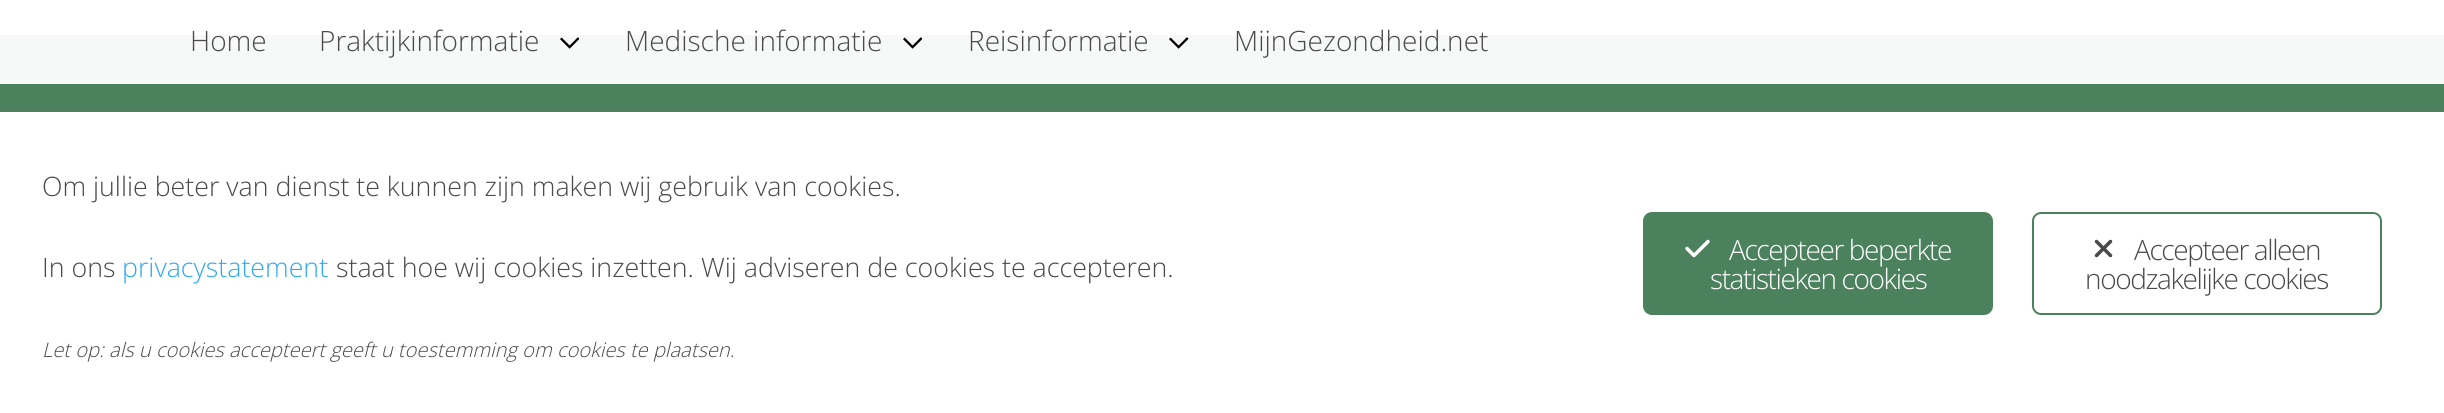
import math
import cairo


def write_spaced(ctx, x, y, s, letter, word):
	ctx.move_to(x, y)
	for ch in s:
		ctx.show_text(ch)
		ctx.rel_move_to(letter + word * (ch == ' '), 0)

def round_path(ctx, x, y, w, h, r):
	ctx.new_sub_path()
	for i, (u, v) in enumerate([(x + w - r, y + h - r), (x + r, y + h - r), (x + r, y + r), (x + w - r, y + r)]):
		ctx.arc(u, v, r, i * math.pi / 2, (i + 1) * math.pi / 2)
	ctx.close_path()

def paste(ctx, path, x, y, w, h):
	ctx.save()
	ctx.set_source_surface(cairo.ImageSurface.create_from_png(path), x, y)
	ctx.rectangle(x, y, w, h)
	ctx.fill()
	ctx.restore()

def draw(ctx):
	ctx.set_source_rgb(1, 1, 1)
	ctx.paint()
	ctx.set_source_rgb(0.965, 0.976, 0.969)
	ctx.rectangle(0, 35, 2444, 49)
	ctx.fill()
	ctx.select_font_face('Open Sans Light')
	ctx.set_font_size(28)
	ctx.set_source_rgb(0.29, 0.29, 0.29)
	ctx.move_to(190, 51)
	ctx.show_text('Home')
	ctx.move_to(319, 51)
	ctx.show_text('Praktijkinformatie')
	paste(ctx, 'media/1.png', 560, 37, 19, 12)
	ctx.move_to(625, 51)
	ctx.show_text('Medische informatie')
	paste(ctx, 'media/1.png', 903, 37, 19, 12)
	ctx.move_to(968, 51)
	ctx.show_text('Reisinformatie')
	paste(ctx, 'media/2.png', 1169, 37, 20, 12)
	ctx.move_to(1234, 51)
	ctx.show_text('MijnGezondheid.net')
	ctx.set_source_rgb(0.298, 0.506, 0.369)
	ctx.rectangle(0, 84, 2444, 28)
	ctx.fill()
	ctx.set_font_size(26.75)
	ctx.set_source_rgb(0.29, 0.29, 0.29)
	ctx.move_to(42, 196)
	ctx.show_text('Om jullie beter van dienst te kunnen zijn maken wij gebruik van cookies.')
	ctx.move_to(42, 277)
	ctx.show_text('In ons')
	ctx.set_source_rgb(0.192, 0.659, 0.941)
	ctx.move_to(122, 277)
	ctx.show_text('privacystatement')
	ctx.set_source_rgb(0.29, 0.29, 0.29)
	ctx.move_to(336, 277)
	ctx.show_text('staat hoe wij cookies inzetten. Wij adviseren de cookies te accepteren.')
	ctx.select_font_face('Open Sans Light', cairo.FONT_SLANT_ITALIC)
	ctx.set_font_size(20.1)
	ctx.move_to(42, 357)
	ctx.show_text('Let op: als u cookies accepteert geeft u toestemming om cookies te plaatsen.')
	ctx.set_source_rgb(0.298, 0.506, 0.369)
	round_path(ctx, 1644, 213, 348, 101, 8)
	ctx.fill_preserve()
	ctx.stroke()
	paste(ctx, 'media/3.png', 1685, 239, 25, 19)
	ctx.select_font_face('Open Sans Light')
	ctx.set_font_size(28)
	ctx.set_source_rgb(1, 1, 1)
	write_spaced(ctx, 1729, 260, 'Accepteer beperkte', -1.4, 0)
	write_spaced(ctx, 1710, 289, 'statistieken cookies', -1.4, 0)
	round_path(ctx, 2033, 213, 348, 101, 8)
	ctx.set_source_rgb(0.298, 0.506, 0.369)
	ctx.stroke()
	paste(ctx, 'media/4.png', 2094, 239, 19, 19)
	ctx.set_source_rgb(0.29, 0.29, 0.29)
	write_spaced(ctx, 2134, 260, 'Accepteer alleen', -1.4, 0)
	write_spaced(ctx, 2085, 289, 'noodzakelijke cookies', -1.4, 0)


surface = cairo.ImageSurface(cairo.FORMAT_RGB24, 2444, 413)
ctx = cairo.Context(surface)
options = cairo.FontOptions()
options.set_hint_metrics(cairo.HINT_METRICS_OFF)
options.set_hint_style(cairo.HINT_STYLE_NONE)
ctx.set_font_options(options)
ctx.set_miter_limit(4)
draw(ctx)
surface.write_to_png('image.png')
